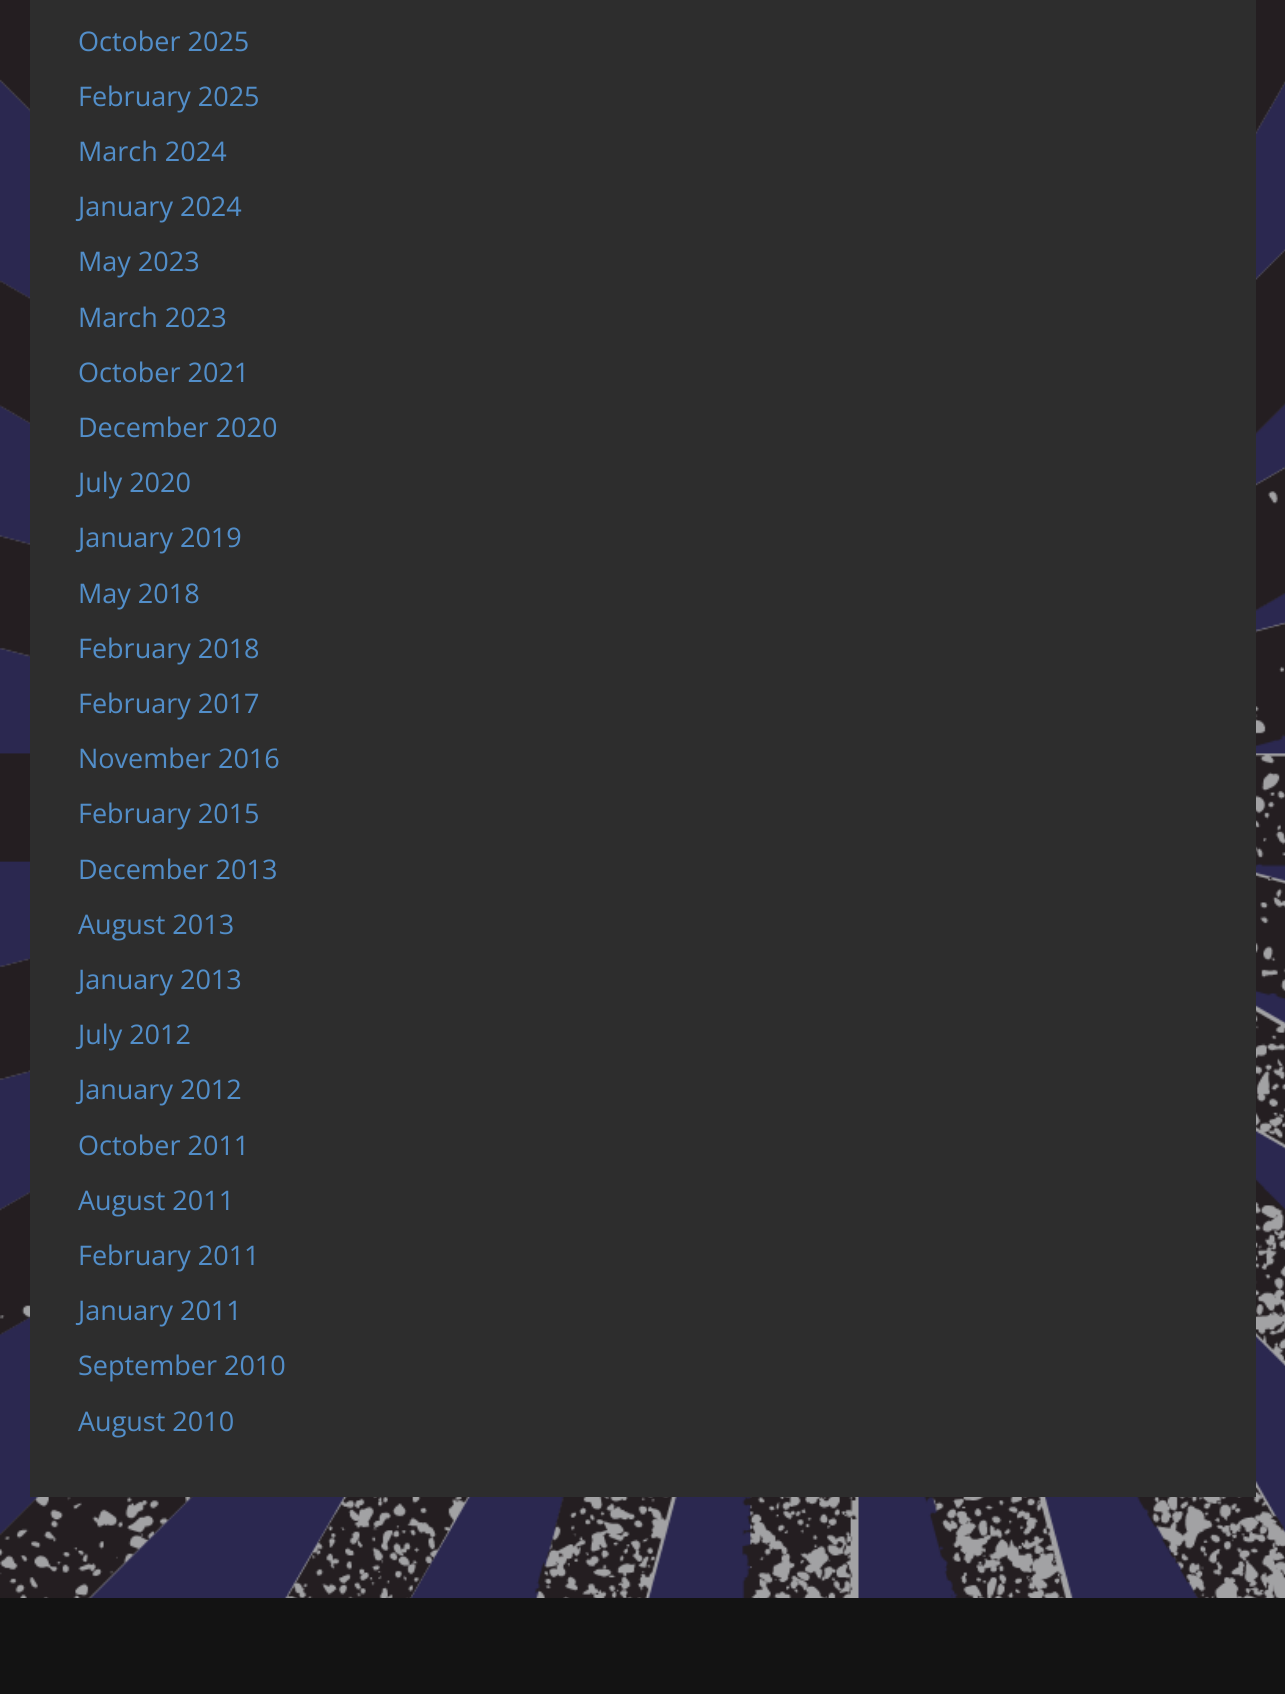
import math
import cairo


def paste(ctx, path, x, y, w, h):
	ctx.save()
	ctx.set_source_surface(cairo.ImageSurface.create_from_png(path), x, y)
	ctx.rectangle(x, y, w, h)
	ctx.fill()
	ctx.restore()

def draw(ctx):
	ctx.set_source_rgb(1, 1, 1)
	ctx.paint()
	paste(ctx, 'media/1.png', 0, 0, 1285, 1598)
	ctx.set_source_rgb(0.176, 0.176, 0.176)
	ctx.rectangle(30, 0, 1226, 1497)
	ctx.fill()
	ctx.select_font_face('Open Sans')
	ctx.set_font_size(27)
	ctx.set_source_rgb(0.322, 0.557, 0.788)
	for x, y, s in [
		(78, 51, 'October 2025'),
		(78, 106, 'February 2025'),
		(78, 161, 'March 2024'),
		(78, 216, 'January 2024'),
		(78, 271, 'May 2023'),
		(78, 327, 'March 2023'),
		(78, 382, 'October 2021'),
		(78, 437, 'December 2020'),
		(78, 492, 'July 2020'),
		(78, 547, 'January 2019'),
		(78, 603, 'May 2018'),
		(78, 658, 'February 2018'),
		(78, 713, 'February 2017'),
		(78, 768, 'November 2016'),
		(78, 823, 'February 2015'),
		(78, 879, 'December 2013'),
		(78, 934, 'August 2013'),
		(78, 989, 'January 2013'),
		(78, 1044, 'July 2012'),
		(78, 1099, 'January 2012'),
		(78, 1155, 'October 2011'),
		(78, 1210, 'August 2011'),
		(78, 1265, 'February 2011'),
		(78, 1320, 'January 2011'),
		(78, 1375, 'September 2010'),
		(78, 1431, 'August 2010'),
	]:
		ctx.move_to(x, y)
		ctx.show_text(s)
	ctx.set_source_rgb(0.078, 0.078, 0.078)
	ctx.rectangle(0, 1598, 1285, 96)
	ctx.fill()


surface = cairo.ImageSurface(cairo.FORMAT_RGB24, 1285, 1694)
ctx = cairo.Context(surface)
options = cairo.FontOptions()
options.set_hint_metrics(cairo.HINT_METRICS_OFF)
options.set_hint_style(cairo.HINT_STYLE_NONE)
ctx.set_font_options(options)
ctx.set_miter_limit(4)
draw(ctx)
surface.write_to_png('image.png')
